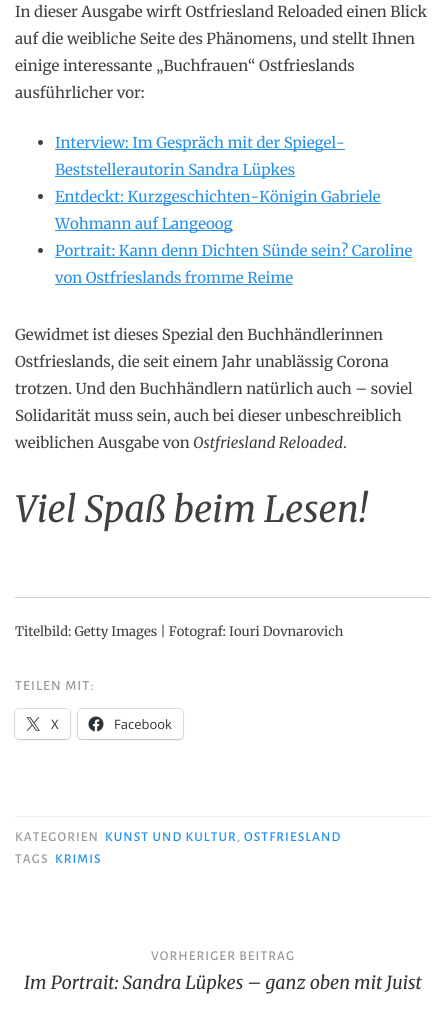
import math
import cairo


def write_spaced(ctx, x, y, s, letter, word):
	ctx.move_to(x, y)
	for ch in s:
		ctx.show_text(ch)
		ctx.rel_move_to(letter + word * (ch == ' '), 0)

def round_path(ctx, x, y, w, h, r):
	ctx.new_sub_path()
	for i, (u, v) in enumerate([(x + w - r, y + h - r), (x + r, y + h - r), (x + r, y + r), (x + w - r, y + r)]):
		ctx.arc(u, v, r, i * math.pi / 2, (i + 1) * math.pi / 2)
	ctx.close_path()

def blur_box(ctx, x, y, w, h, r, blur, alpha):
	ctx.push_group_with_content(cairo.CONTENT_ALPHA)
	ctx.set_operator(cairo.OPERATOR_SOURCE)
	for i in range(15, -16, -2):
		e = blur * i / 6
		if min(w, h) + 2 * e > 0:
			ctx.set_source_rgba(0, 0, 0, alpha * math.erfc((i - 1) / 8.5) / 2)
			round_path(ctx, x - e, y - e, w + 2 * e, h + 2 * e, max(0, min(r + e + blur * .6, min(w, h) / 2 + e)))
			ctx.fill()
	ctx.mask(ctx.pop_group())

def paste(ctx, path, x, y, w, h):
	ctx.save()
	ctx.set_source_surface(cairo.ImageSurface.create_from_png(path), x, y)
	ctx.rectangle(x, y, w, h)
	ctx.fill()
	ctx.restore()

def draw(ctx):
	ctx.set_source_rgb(1, 1, 1)
	ctx.paint()
	ctx.select_font_face('Merriweather')
	ctx.set_font_size(15)
	ctx.set_source_rgb(0.251, 0.251, 0.251)
	for x, y, s in [
		(15, 17, 'In dieser Ausgabe wirft Ostfriesland Reloaded einen Blick'),
		(15, 44, 'auf die weibliche Seite des Phänomens, und stellt Ihnen'),
		(15, 71, 'einige interessante „Buchfrauen“ Ostfrieslands'),
		(15, 98, 'ausführlicher vor:'),
	]:
		ctx.move_to(x, y)
		ctx.show_text(s)
	ctx.new_path()
	ctx.arc(40.5, 142.5, 2.5, 0, 2 * math.pi)
	ctx.fill()
	ctx.set_source_rgb(0.145, 0.565, 0.925)
	ctx.rectangle(55, 149, 290, 1)
	ctx.fill()
	ctx.move_to(55, 148)
	ctx.show_text('Interview: Im Gespräch mit der Spiegel-')
	ctx.rectangle(55, 176, 240, 1)
	ctx.fill()
	ctx.move_to(55, 175)
	ctx.show_text('Beststellerautorin Sandra Lüpkes')
	ctx.set_source_rgb(0.251, 0.251, 0.251)
	ctx.new_path()
	ctx.arc(40.5, 196.5, 2.5, 0, 2 * math.pi)
	ctx.fill()
	ctx.set_source_rgb(0.145, 0.565, 0.925)
	ctx.rectangle(55, 203, 326, 1)
	ctx.fill()
	ctx.move_to(55, 202)
	ctx.show_text('Entdeckt: Kurzgeschichten-Königin Gabriele')
	ctx.rectangle(55, 230, 178, 1)
	ctx.fill()
	ctx.move_to(55, 229)
	ctx.show_text('Wohmann auf Langeoog')
	ctx.set_source_rgb(0.251, 0.251, 0.251)
	ctx.new_path()
	ctx.arc(40.5, 250.5, 2.5, 0, 2 * math.pi)
	ctx.fill()
	ctx.set_source_rgb(0.145, 0.565, 0.925)
	ctx.move_to(55, 256)
	ctx.show_text('Portrait: Kann denn Dichten Sünde sein? Caroline')
	ctx.rectangle(55, 257, 357, 1)
	ctx.fill()
	ctx.move_to(55, 283)
	ctx.show_text('von Ostfrieslands fromme Reime')
	ctx.rectangle(55, 284, 238, 1)
	ctx.fill()
	ctx.set_source_rgb(0.251, 0.251, 0.251)
	for x, y, s in [
		(15, 340, 'Gewidmet ist dieses Spezial den Buchhändlerinnen'),
		(15, 367, 'Ostfrieslands, die seit einem Jahr unablässig Corona'),
		(15, 394, 'trotzen. Und den Buchhändlern natürlich auch – soviel'),
		(15, 421, 'Solidarität muss sein, auch bei dieser unbeschreiblich'),
		(15, 448, 'weiblichen Ausgabe von'),
	]:
		ctx.move_to(x, y)
		ctx.show_text(s)
	ctx.select_font_face('Merriweather', cairo.FONT_SLANT_ITALIC)
	ctx.move_to(193, 448)
	ctx.show_text('Ostfriesland Reloaded')
	ctx.select_font_face('Merriweather')
	ctx.move_to(343, 448)
	ctx.show_text('.')
	ctx.select_font_face('Merriweather', cairo.FONT_SLANT_ITALIC)
	ctx.set_font_size(36)
	ctx.move_to(15, 522)
	ctx.show_text('Viel Spaß beim Lesen!')
	ctx.set_source_rgb(0.8, 0.8, 0.8)
	ctx.rectangle(15, 597, 415, 1)
	ctx.fill()
	ctx.select_font_face('Merriweather')
	ctx.set_font_size(13)
	ctx.set_source_rgb(0.251, 0.251, 0.251)
	ctx.move_to(15, 636)
	ctx.show_text('Titelbild: Getty Images | Fotograf: Iouri Dovnarovich')
	ctx.select_font_face('Alegreya Sans Medium')
	ctx.set_font_size(14)
	ctx.set_source_rgb(0.6, 0.6, 0.6)
	write_spaced(ctx, 15, 690, 'TEILEN MIT:', 1.1, 0)
	round_path(ctx, 14.5, 708.5, 56, 31, 4.5)
	ctx.set_source_rgb(0.878, 0.878, 0.878)
	ctx.set_line_width(1)
	ctx.stroke()
	ctx.set_source_rgb(0, 0, 0)
	blur_box(ctx, 15, 710, 55, 30, 4, 1, 0.12)
	ctx.set_source_rgb(1, 1, 1)
	round_path(ctx, 15, 709, 55, 30, 4)
	ctx.fill()
	paste(ctx, 'media/1.png', 26, 717, 14, 14)
	ctx.select_font_face('Open Sans')
	ctx.set_font_size(13)
	ctx.set_source_rgb(0.173, 0.2, 0.22)
	ctx.move_to(51, 729)
	ctx.show_text('X')
	round_path(ctx, 77.5, 708.5, 106, 31, 4.5)
	ctx.set_source_rgb(0.878, 0.878, 0.878)
	ctx.stroke()
	ctx.set_source_rgb(0, 0, 0)
	blur_box(ctx, 78, 710, 105, 30, 4, 1, 0.12)
	ctx.set_source_rgb(1, 1, 1)
	round_path(ctx, 78, 709, 105, 30, 4)
	ctx.fill()
	paste(ctx, 'media/2.png', 88, 716, 16, 16)
	ctx.set_source_rgb(0.173, 0.2, 0.22)
	ctx.move_to(114, 729)
	ctx.show_text('Facebook')
	ctx.set_source_rgb(0.937, 0.937, 0.937)
	ctx.rectangle(15, 816, 415, 1)
	ctx.fill()
	ctx.select_font_face('Alegreya Sans Medium')
	ctx.set_font_size(13.5)
	ctx.set_source_rgb(0.6, 0.6, 0.6)
	write_spaced(ctx, 15, 841, 'KATEGORIEN', 1.1, 0)
	ctx.set_source_rgb(0.145, 0.565, 0.925)
	write_spaced(ctx, 105, 841, 'KUNST UND KULTUR', 1.1, 0)
	ctx.set_source_rgb(0.6, 0.6, 0.6)
	write_spaced(ctx, 237, 841, ',', 1.1, 0)
	ctx.set_source_rgb(0.145, 0.565, 0.925)
	write_spaced(ctx, 244, 841, 'OSTFRIESLAND', 1.1, 0)
	ctx.set_source_rgb(0.6, 0.6, 0.6)
	write_spaced(ctx, 15, 863, 'TAGS', 1.1, 0)
	ctx.set_source_rgb(0.145, 0.565, 0.925)
	write_spaced(ctx, 55, 863, 'KRIMIS', 1.1, 0)
	ctx.set_source_rgb(0.6, 0.6, 0.6)
	write_spaced(ctx, 151, 960, 'VORHERIGER BEITRAG', 1.1, 0)
	ctx.select_font_face('Merriweather', cairo.FONT_SLANT_ITALIC)
	ctx.set_font_size(18)
	ctx.set_source_rgb(0.2, 0.2, 0.2)
	ctx.move_to(24, 989)
	ctx.show_text('Im Portrait: Sandra Lüpkes – ganz oben mit Juist')


surface = cairo.ImageSurface(cairo.FORMAT_RGB24, 445, 1028)
ctx = cairo.Context(surface)
options = cairo.FontOptions()
options.set_hint_metrics(cairo.HINT_METRICS_OFF)
options.set_hint_style(cairo.HINT_STYLE_NONE)
ctx.set_font_options(options)
ctx.set_miter_limit(4)
draw(ctx)
surface.write_to_png('image.png')
